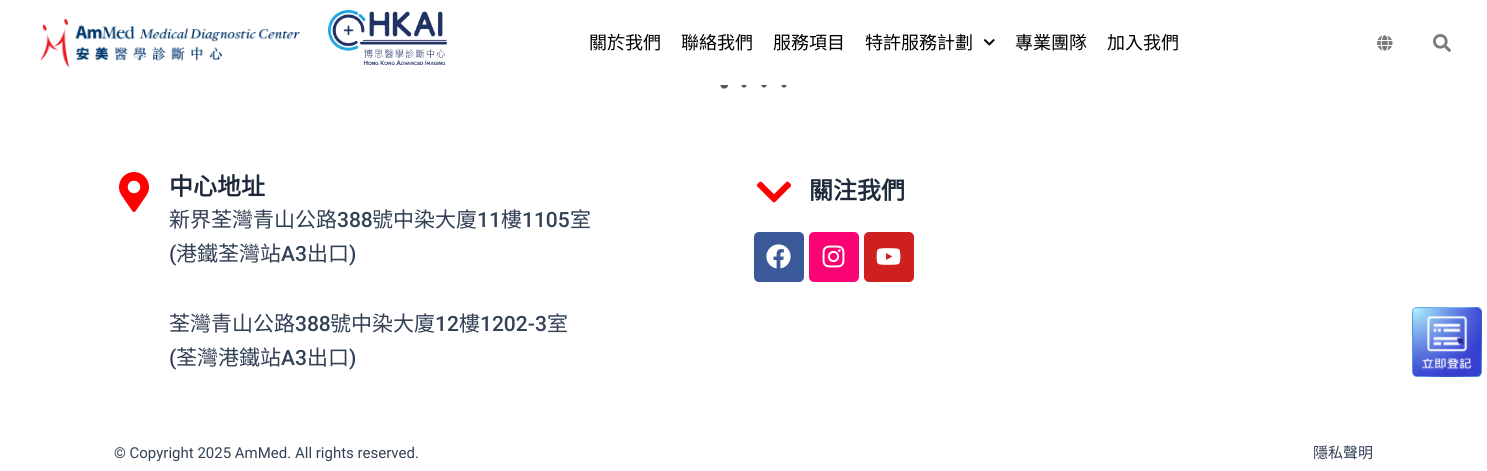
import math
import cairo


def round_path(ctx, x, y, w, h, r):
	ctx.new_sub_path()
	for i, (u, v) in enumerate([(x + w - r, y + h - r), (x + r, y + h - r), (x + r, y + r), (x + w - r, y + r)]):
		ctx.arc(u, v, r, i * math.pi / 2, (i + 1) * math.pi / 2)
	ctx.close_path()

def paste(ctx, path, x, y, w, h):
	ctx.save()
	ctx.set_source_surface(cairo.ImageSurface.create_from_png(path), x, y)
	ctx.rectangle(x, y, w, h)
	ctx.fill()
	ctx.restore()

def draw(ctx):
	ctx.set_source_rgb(1, 1, 1)
	ctx.paint()
	paste(ctx, 'media/1.png', 40, 18, 260, 50)
	paste(ctx, 'media/2.png', 328, 10, 119, 55)
	ctx.select_font_face('Noto Sans CJK HK')
	ctx.set_font_size(18)
	ctx.set_source_rgb(0, 0, 0)
	for x, y, s in [
		(589, 49, '關於我們'),
		(681, 49, '聯絡我們'),
		(773, 49, '服務項目'),
		(865, 49, '特許服務計劃'),
	]:
		ctx.move_to(x, y)
		ctx.show_text(s)
	paste(ctx, 'media/3.png', 984, 39, 11, 7)
	ctx.move_to(1015, 49)
	ctx.show_text('專業團隊')
	ctx.move_to(1107, 49)
	ctx.show_text('加入我們')
	paste(ctx, 'media/4.png', 1377, 35, 16, 16)
	paste(ctx, 'media/5.png', 1433, 34, 18, 18)
	paste(ctx, 'media/6.png', 720, 85, 8, 4)
	paste(ctx, 'media/7.png', 741, 85, 6, 3)
	paste(ctx, 'media/7.png', 761, 85, 6, 3)
	paste(ctx, 'media/7.png', 781, 85, 6, 3)
	paste(ctx, 'media/8.png', 119, 172, 30, 40)
	ctx.select_font_face('Noto Sans CJK HK', cairo.FONT_SLANT_NORMAL, cairo.FONT_WEIGHT_BOLD)
	ctx.set_font_size(24)
	ctx.set_source_rgb(0.118, 0.161, 0.231)
	ctx.move_to(169, 195)
	ctx.show_text('中心地址')
	ctx.select_font_face('Noto Sans CJK HK')
	ctx.set_font_size(21)
	ctx.set_source_rgb(0.2, 0.255, 0.333)
	ctx.move_to(169, 227)
	ctx.show_text('新界荃灣青山公路')
	ctx.select_font_face('Roboto Medium')
	ctx.move_to(337, 227)
	ctx.show_text('388')
	ctx.select_font_face('Noto Sans CJK HK')
	ctx.move_to(372, 227)
	ctx.show_text('號中染大廈')
	ctx.select_font_face('Roboto Medium')
	ctx.move_to(477, 227)
	ctx.show_text('11')
	ctx.select_font_face('Noto Sans CJK HK')
	ctx.move_to(501, 227)
	ctx.show_text('樓')
	ctx.select_font_face('Roboto Medium')
	ctx.move_to(522, 227)
	ctx.show_text('1105')
	ctx.select_font_face('Noto Sans CJK HK')
	ctx.move_to(570, 227)
	ctx.show_text('室')
	ctx.select_font_face('Roboto Medium')
	ctx.move_to(169, 261)
	ctx.show_text('(')
	ctx.select_font_face('Noto Sans CJK HK')
	ctx.move_to(176, 261)
	ctx.show_text('港鐵荃灣站')
	ctx.select_font_face('Roboto Medium')
	ctx.move_to(281, 261)
	ctx.show_text('A3')
	ctx.select_font_face('Noto Sans CJK HK')
	ctx.move_to(307, 261)
	ctx.show_text('出口')
	ctx.select_font_face('Roboto Medium')
	ctx.move_to(349, 261)
	ctx.show_text(')')
	ctx.select_font_face('Noto Sans CJK HK')
	ctx.move_to(169, 331)
	ctx.show_text('荃灣青山公路')
	ctx.select_font_face('Roboto Medium')
	ctx.move_to(295, 331)
	ctx.show_text('388')
	ctx.select_font_face('Noto Sans CJK HK')
	ctx.move_to(330, 331)
	ctx.show_text('號中染大廈')
	ctx.select_font_face('Roboto Medium')
	ctx.move_to(435, 331)
	ctx.show_text('12')
	ctx.select_font_face('Noto Sans CJK HK')
	ctx.move_to(459, 331)
	ctx.show_text('樓')
	ctx.select_font_face('Roboto Medium')
	ctx.move_to(480, 331)
	ctx.show_text('1202-3')
	ctx.select_font_face('Noto Sans CJK HK')
	ctx.move_to(547, 331)
	ctx.show_text('室')
	ctx.select_font_face('Roboto Medium')
	ctx.move_to(169, 365)
	ctx.show_text('(')
	ctx.select_font_face('Noto Sans CJK HK')
	ctx.move_to(176, 365)
	ctx.show_text('荃灣港鐵站')
	ctx.select_font_face('Roboto Medium')
	ctx.move_to(281, 365)
	ctx.show_text('A3')
	ctx.select_font_face('Noto Sans CJK HK')
	ctx.move_to(307, 365)
	ctx.show_text('出口')
	ctx.select_font_face('Roboto Medium')
	ctx.move_to(349, 365)
	ctx.show_text(')')
	paste(ctx, 'media/9.png', 757, 181, 34, 22)
	ctx.select_font_face('Noto Sans CJK HK', cairo.FONT_SLANT_NORMAL, cairo.FONT_WEIGHT_BOLD)
	ctx.set_font_size(24)
	ctx.set_source_rgb(0.118, 0.161, 0.231)
	ctx.move_to(809, 199)
	ctx.show_text('關注我們')
	ctx.set_source_rgb(0.231, 0.349, 0.596)
	round_path(ctx, 754, 232, 50, 50, 5)
	ctx.fill()
	paste(ctx, 'media/10.png', 766, 244, 25, 25)
	ctx.set_source_rgb(0.988, 0.012, 0.451)
	round_path(ctx, 809, 232, 50, 50, 5)
	ctx.fill()
	paste(ctx, 'media/11.png', 822, 245, 23, 23)
	ctx.set_source_rgb(0.804, 0.125, 0.122)
	round_path(ctx, 864, 232, 50, 50, 5)
	ctx.fill()
	paste(ctx, 'media/12.png', 876, 248, 25, 17)
	paste(ctx, 'media/13.png', 1412, 307, 70, 70)
	ctx.select_font_face('Roboto')
	ctx.set_font_size(15)
	ctx.set_source_rgb(0.2, 0.255, 0.333)
	ctx.move_to(114, 458)
	ctx.show_text('© Copyright 2025 AmMed. All rights reserved.')
	ctx.select_font_face('Noto Sans CJK HK')
	ctx.move_to(1313, 458)
	ctx.show_text('隱私聲明')


surface = cairo.ImageSurface(cairo.FORMAT_RGB24, 1487, 471)
ctx = cairo.Context(surface)
options = cairo.FontOptions()
options.set_hint_metrics(cairo.HINT_METRICS_OFF)
options.set_hint_style(cairo.HINT_STYLE_NONE)
ctx.set_font_options(options)
ctx.set_miter_limit(4)
draw(ctx)
surface.write_to_png('image.png')
